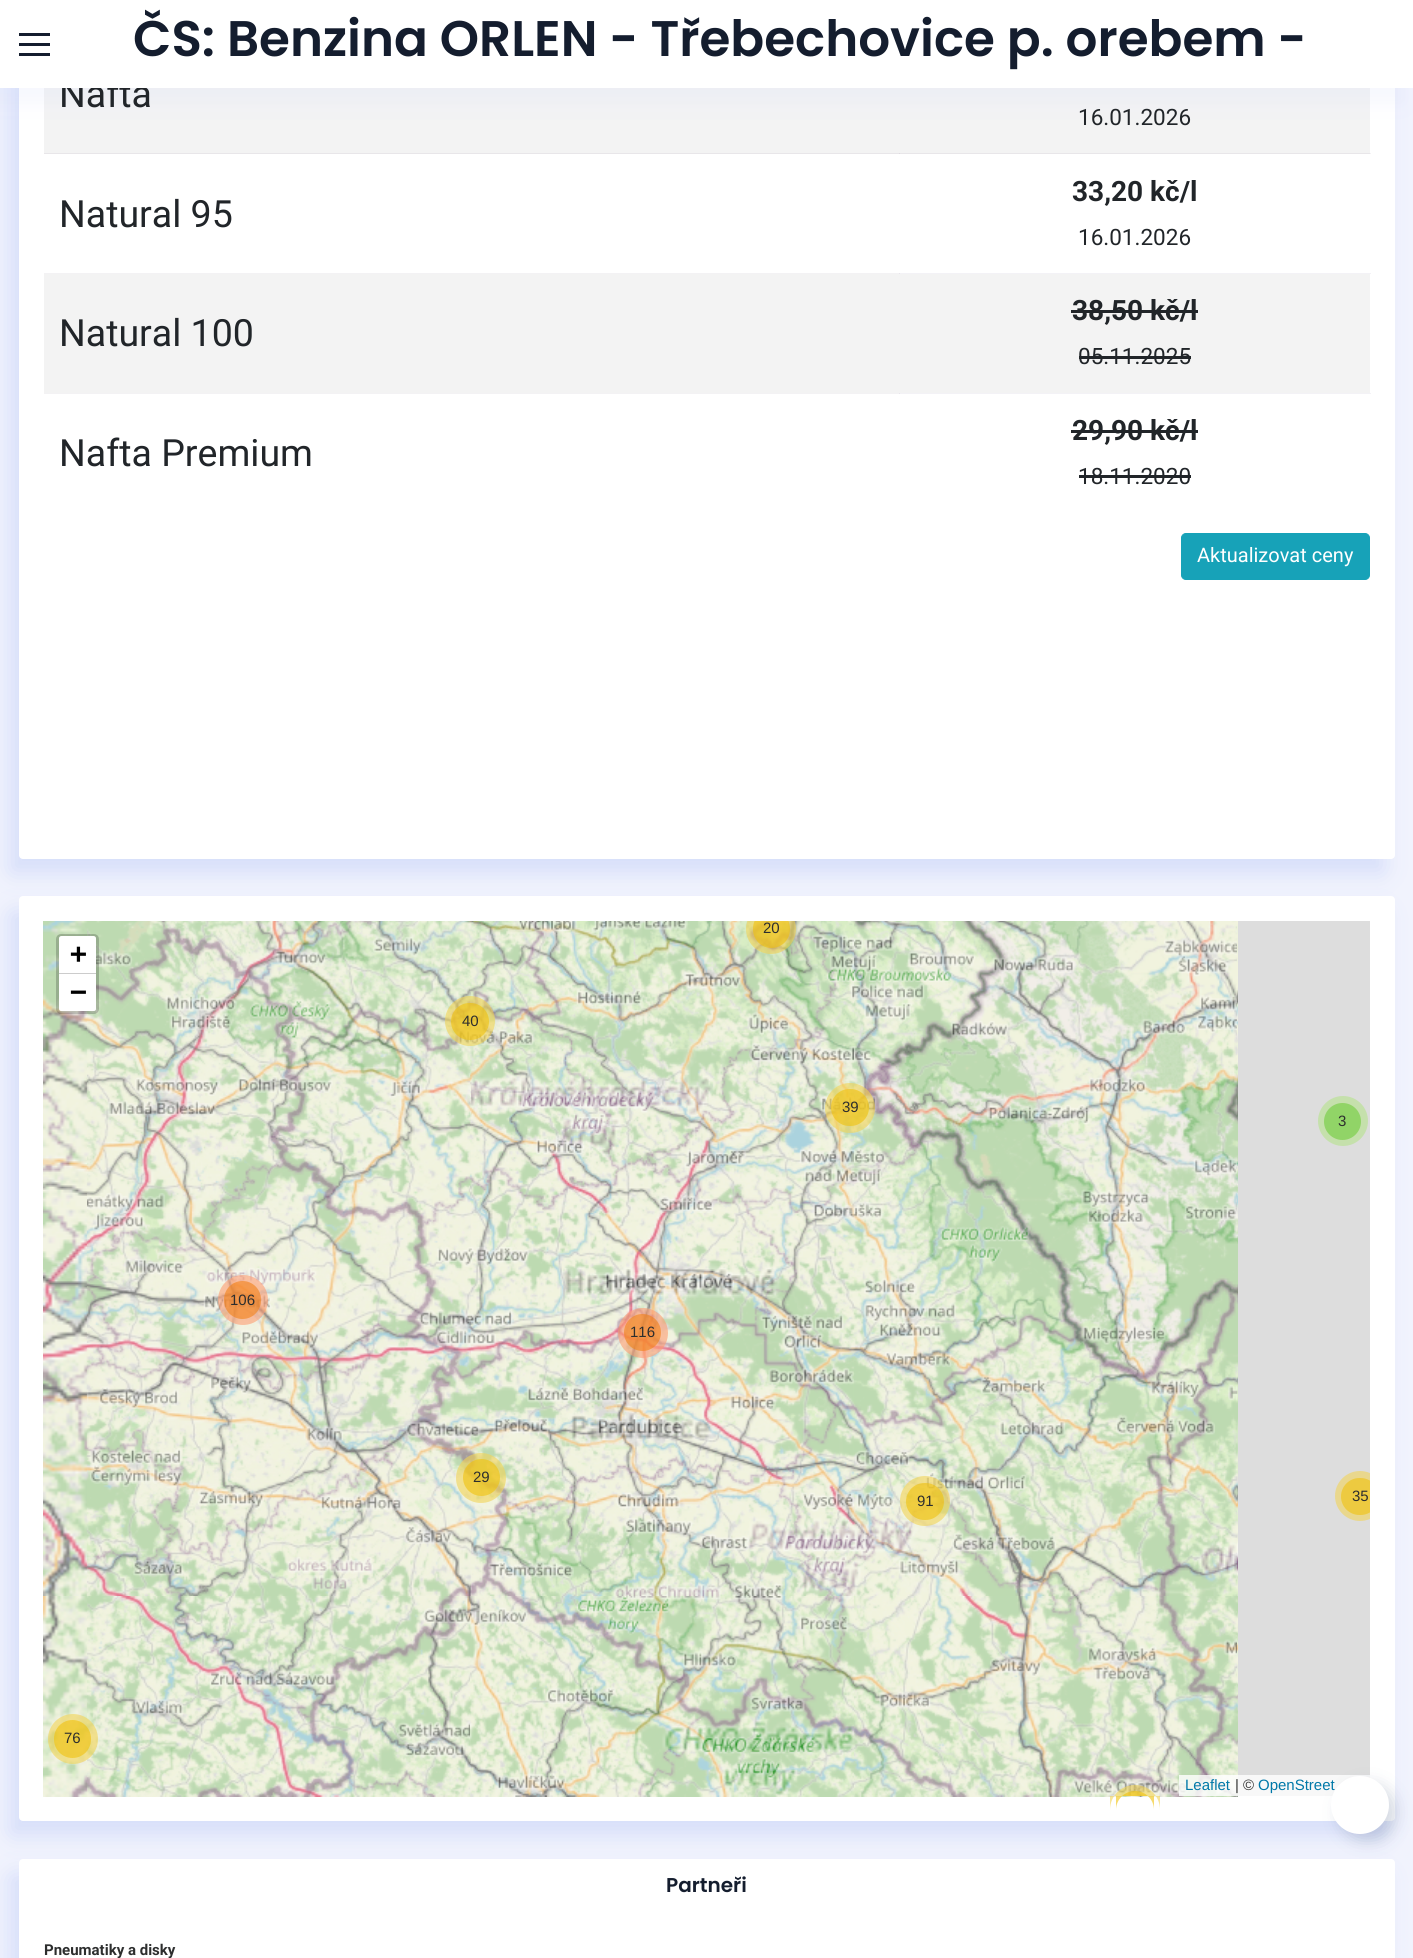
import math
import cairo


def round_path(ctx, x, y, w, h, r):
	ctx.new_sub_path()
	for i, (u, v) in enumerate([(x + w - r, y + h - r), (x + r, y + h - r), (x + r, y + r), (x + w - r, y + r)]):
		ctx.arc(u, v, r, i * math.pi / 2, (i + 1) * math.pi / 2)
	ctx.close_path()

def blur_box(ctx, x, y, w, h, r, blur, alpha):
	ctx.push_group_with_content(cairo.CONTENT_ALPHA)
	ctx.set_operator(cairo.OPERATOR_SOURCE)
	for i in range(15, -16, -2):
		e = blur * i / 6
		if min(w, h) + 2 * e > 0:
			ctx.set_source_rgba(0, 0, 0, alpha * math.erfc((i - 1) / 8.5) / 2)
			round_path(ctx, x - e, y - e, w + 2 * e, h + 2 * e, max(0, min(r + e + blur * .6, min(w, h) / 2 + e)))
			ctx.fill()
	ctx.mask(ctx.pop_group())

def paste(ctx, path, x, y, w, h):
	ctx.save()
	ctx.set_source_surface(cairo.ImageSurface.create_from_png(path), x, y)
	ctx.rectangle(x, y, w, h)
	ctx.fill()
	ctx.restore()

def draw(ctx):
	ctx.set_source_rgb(0.945, 0.953, 0.992)
	ctx.paint()
	ctx.set_source_rgb(0.82, 0.855, 0.976)
	blur_box(ctx, 9, -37, 1376, 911, 4, 11, 0.8)
	ctx.set_source_rgb(1, 1, 1)
	round_path(ctx, 19, -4, 1376, 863, 4)
	ctx.fill()
	ctx.set_source_rgb(0.953, 0.953, 0.953)
	ctx.rectangle(44, 88, 1326, 65)
	ctx.fill()
	ctx.set_source_rgb(0.82, 0.855, 0.976)
	blur_box(ctx, -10, 15, 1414, 88, 0, 11, 0.2)
	ctx.select_font_face('Roboto')
	ctx.set_font_size(37.5)
	ctx.set_source_rgb(0.129, 0.145, 0.161)
	ctx.move_to(59, 107)
	ctx.show_text('Nafta')
	ctx.set_source_rgb(1, 1, 1)
	ctx.rectangle(0, 0, 1413, 88)
	ctx.fill()
	ctx.set_source_rgb(0.082, 0.114, 0.18)
	ctx.rectangle(19, 33, 31, 3)
	ctx.rectangle(19, 53, 31, 3)
	ctx.rectangle(19, 43, 31, 3)
	ctx.fill()
	ctx.select_font_face('Poppins SemiBold')
	ctx.set_font_size(50)
	ctx.move_to(133, 56)
	ctx.show_text('ČS: Benzina ORLEN - Třebechovice p. orebem -')
	ctx.set_source_rgb(0.953, 0.949, 0.957)
	ctx.rectangle(1370, 153, 1, 1)
	ctx.rectangle(44, 273, 856, 1)
	ctx.rectangle(44, 393, 856, 1)
	ctx.fill()
	ctx.set_source_rgb(0.91, 0.902, 0.914)
	ctx.rectangle(44, 153, 1326, 1)
	ctx.fill()
	ctx.set_source_rgb(0.871, 0.855, 0.878)
	ctx.rectangle(899, 153, 1, 1)
	ctx.fill()
	ctx.select_font_face('Roboto')
	ctx.set_font_size(22.5)
	ctx.set_source_rgb(0.129, 0.145, 0.161)
	ctx.move_to(1078, 125)
	ctx.show_text('16.01.2026')
	ctx.set_font_size(37.5)
	ctx.move_to(59, 227)
	ctx.show_text('Natural 95')
	ctx.select_font_face('Roboto', cairo.FONT_SLANT_NORMAL, cairo.FONT_WEIGHT_BOLD)
	ctx.set_font_size(28)
	ctx.move_to(1072, 201)
	ctx.show_text('33,20 kč/l')
	ctx.select_font_face('Roboto')
	ctx.set_font_size(22.5)
	ctx.move_to(1078, 245)
	ctx.show_text('16.01.2026')
	ctx.set_source_rgb(0.953, 0.953, 0.953)
	ctx.rectangle(44, 274, 1326, 119)
	ctx.fill()
	ctx.set_font_size(37.5)
	ctx.set_source_rgb(0.129, 0.145, 0.161)
	ctx.move_to(59, 346)
	ctx.show_text('Natural 100')
	ctx.set_source_rgb(0.953, 0.949, 0.961)
	ctx.rectangle(899, 273, 472, 1)
	ctx.fill()
	ctx.set_source_rgb(0.91, 0.898, 0.922)
	ctx.rectangle(899, 273, 1, 1)
	ctx.fill()
	ctx.select_font_face('Roboto', cairo.FONT_SLANT_NORMAL, cairo.FONT_WEIGHT_BOLD)
	ctx.set_font_size(28)
	ctx.set_source_rgb(0.129, 0.145, 0.161)
	ctx.move_to(1072, 320)
	ctx.show_text('38,50 kč/l')
	ctx.rectangle(1071, 310, 127, 3)
	ctx.fill()
	ctx.select_font_face('Roboto')
	ctx.set_font_size(22.5)
	ctx.move_to(1078, 364)
	ctx.show_text('05.11.2025')
	ctx.rectangle(1079, 356, 112, 3)
	ctx.fill()
	ctx.set_font_size(37.5)
	ctx.move_to(59, 466)
	ctx.show_text('Nafta Premium')
	ctx.set_source_rgb(0.953, 0.949, 0.961)
	ctx.rectangle(899, 393, 472, 1)
	ctx.fill()
	ctx.set_source_rgb(0.91, 0.898, 0.922)
	ctx.rectangle(899, 393, 1, 1)
	ctx.fill()
	ctx.select_font_face('Roboto', cairo.FONT_SLANT_NORMAL, cairo.FONT_WEIGHT_BOLD)
	ctx.set_font_size(28)
	ctx.set_source_rgb(0.129, 0.145, 0.161)
	ctx.move_to(1072, 440)
	ctx.show_text('29,90 kč/l')
	ctx.rectangle(1071, 430, 127, 3)
	ctx.fill()
	ctx.select_font_face('Roboto')
	ctx.set_font_size(22.5)
	ctx.move_to(1078, 484)
	ctx.show_text('18.11.2020')
	ctx.rectangle(1079, 475, 112, 3)
	ctx.fill()
	ctx.set_source_rgb(0.09, 0.635, 0.722)
	round_path(ctx, 1181.5, 533.5, 188, 46, 4.5)
	ctx.fill_preserve()
	ctx.set_line_width(1)
	ctx.stroke()
	ctx.set_font_size(20)
	ctx.set_source_rgb(1, 1, 1)
	ctx.move_to(1197, 562)
	ctx.show_text('Aktualizovat ceny')
	ctx.set_source_rgb(0.82, 0.855, 0.976)
	blur_box(ctx, 9, 911, 1376, 925, 4, 11, 0.8)
	ctx.set_source_rgb(1, 1, 1)
	round_path(ctx, 19, 896, 1376, 925, 4)
	ctx.fill()
	ctx.set_source_rgb(0.867, 0.867, 0.867)
	ctx.rectangle(1238, 921, 132, 875)
	ctx.fill()
	paste(ctx, 'media/1.png', 43, 921, 428, 675)
	paste(ctx, 'media/2.png', 471, 921, 767, 675)
	paste(ctx, 'media/3.png', 43, 1596, 428, 201)
	paste(ctx, 'media/4.png', 471, 1596, 767, 201)
	paste(ctx, 'media/9.png', 470, 1212, 384, 384)
	paste(ctx, 'media/6.png', 470, 921, 384, 292)
	paste(ctx, 'media/8.png', 86, 1212, 385, 384)
	paste(ctx, 'media/5.png', 87, 921, 383, 292)
	paste(ctx, 'media/10.png', 853, 1212, 385, 384)
	paste(ctx, 'media/7.png', 854, 921, 383, 292)
	paste(ctx, 'media/11.png', 87, 1596, 383, 201)
	paste(ctx, 'media/12.png', 470, 1596, 384, 201)
	paste(ctx, 'media/13.png', 854, 1596, 383, 201)
	ctx.save()
	ctx.rectangle(44, 921, 1326, 875)
	ctx.clip()
	ctx.set_source_rgba(0.945, 0.827, 0.341, 0.6)
	ctx.arc(771, 929, 25, 0, 2 * math.pi)
	ctx.fill()
	ctx.set_source_rgba(0.941, 0.761, 0.047, 0.6)
	round_path(ctx, 753, 910, 37, 38, 18.5)
	ctx.fill()
	ctx.restore()
	ctx.select_font_face('Liberation Sans')
	ctx.set_font_size(15)
	ctx.set_source_rgb(0.176, 0.18, 0.18)
	ctx.move_to(763, 933)
	ctx.show_text('20')
	ctx.set_source_rgba(0.945, 0.827, 0.341, 0.6)
	ctx.new_path()
	ctx.arc(470, 1021, 25, 0, 2 * math.pi)
	ctx.fill()
	ctx.set_source_rgba(0.941, 0.761, 0.047, 0.6)
	round_path(ctx, 451, 1003, 38, 37, 18.5)
	ctx.fill()
	ctx.set_source_rgb(0.176, 0.18, 0.18)
	ctx.move_to(462, 1026)
	ctx.show_text('40')
	ctx.set_source_rgba(0.945, 0.827, 0.341, 0.6)
	ctx.new_path()
	ctx.arc(850, 1108, 25, 0, 2 * math.pi)
	ctx.fill()
	ctx.set_source_rgba(0.941, 0.761, 0.047, 0.6)
	round_path(ctx, 831, 1089, 38, 37, 18.5)
	ctx.fill()
	ctx.set_source_rgb(0.176, 0.18, 0.18)
	ctx.move_to(842, 1112)
	ctx.show_text('39')
	ctx.set_source_rgb(0.773, 0.878, 0.675)
	ctx.new_path()
	ctx.arc(1343, 1121, 25, 0, 2 * math.pi)
	ctx.fill()
	ctx.set_source_rgb(0.569, 0.831, 0.404)
	ctx.arc(1342.5, 1121.5, 18.5, 0, 2 * math.pi)
	ctx.fill()
	ctx.set_source_rgb(0.176, 0.18, 0.18)
	ctx.move_to(1338, 1126)
	ctx.show_text('3')
	ctx.set_source_rgba(0.992, 0.612, 0.451, 0.6)
	ctx.new_path()
	ctx.arc(243, 1300, 25, 0, 2 * math.pi)
	ctx.fill()
	ctx.set_source_rgba(0.945, 0.502, 0.09, 0.6)
	round_path(ctx, 224, 1281, 37, 38, 18.5)
	ctx.fill()
	ctx.set_source_rgb(0.176, 0.18, 0.18)
	ctx.move_to(230, 1305)
	ctx.show_text('106')
	ctx.set_source_rgba(0.992, 0.612, 0.451, 0.6)
	ctx.new_path()
	ctx.arc(643, 1333, 25, 0, 2 * math.pi)
	ctx.fill()
	ctx.set_source_rgba(0.945, 0.502, 0.09, 0.6)
	ctx.arc(642.5, 1332.5, 18.5, 0, 2 * math.pi)
	ctx.fill()
	ctx.set_source_rgb(0.176, 0.18, 0.18)
	ctx.move_to(630, 1337)
	ctx.show_text('116')
	ctx.set_source_rgba(0.945, 0.827, 0.341, 0.6)
	ctx.new_path()
	ctx.arc(481, 1478, 25, 0, 2 * math.pi)
	ctx.fill()
	ctx.set_source_rgba(0.941, 0.761, 0.047, 0.6)
	ctx.arc(481.5, 1477.5, 18.5, 0, 2 * math.pi)
	ctx.fill()
	ctx.set_source_rgb(0.176, 0.18, 0.18)
	ctx.move_to(473, 1482)
	ctx.show_text('29')
	ctx.set_source_rgba(0.945, 0.827, 0.341, 0.6)
	ctx.new_path()
	ctx.arc(925, 1501, 25, 0, 2 * math.pi)
	ctx.fill()
	ctx.set_source_rgba(0.941, 0.761, 0.047, 0.6)
	round_path(ctx, 906, 1483, 38, 37, 18.5)
	ctx.fill()
	ctx.set_source_rgb(0.176, 0.18, 0.18)
	ctx.move_to(917, 1506)
	ctx.show_text('91')
	ctx.save()
	ctx.rectangle(44, 921, 1326, 875)
	ctx.clip()
	ctx.set_source_rgb(0.914, 0.843, 0.553)
	ctx.arc(1360, 1496, 25, 0, 2 * math.pi)
	ctx.fill()
	ctx.set_source_rgb(0.929, 0.792, 0.251)
	round_path(ctx, 1341, 1478, 38, 37, 18.5)
	ctx.fill()
	ctx.restore()
	ctx.move_to(1352, 1501)
	ctx.show_text('35')
	ctx.set_source_rgba(0.945, 0.827, 0.341, 0.6)
	ctx.new_path()
	ctx.arc(73, 1739, 25, 0, 2 * math.pi)
	ctx.fill()
	ctx.set_source_rgba(0.941, 0.761, 0.047, 0.6)
	round_path(ctx, 54, 1720, 37, 38, 18.5)
	ctx.fill()
	ctx.set_source_rgb(0.176, 0.18, 0.18)
	ctx.move_to(64, 1743)
	ctx.show_text('76')
	ctx.set_source_rgba(0.945, 0.827, 0.341, 0.6)
	ctx.new_path()
	ctx.move_to(1135, 1785)
	ctx.curve_to(1149, 1785, 1160, 1796, 1160, 1810)
	ctx.line_to(1160, 1796)
	ctx.line_to(1110, 1796)
	ctx.line_to(1110, 1810)
	ctx.curve_to(1110, 1796, 1121, 1785, 1135, 1785)
	ctx.close_path()
	ctx.fill()
	ctx.set_source_rgba(0.941, 0.761, 0.047, 0.6)
	ctx.new_path()
	ctx.move_to(1135, 1791)
	ctx.curve_to(1145.5, 1791, 1154, 1799.5, 1154, 1810)
	ctx.line_to(1154, 1796)
	ctx.line_to(1116, 1796)
	ctx.line_to(1116, 1810)
	ctx.curve_to(1116, 1799.5, 1124.5, 1791, 1135, 1791)
	ctx.close_path()
	ctx.fill()
	round_path(ctx, 57.5, 935.5, 40, 77, 3.5)
	ctx.set_source_rgba(0, 0, 0, 0.2)
	ctx.set_line_width(3)
	ctx.stroke()
	ctx.set_source_rgb(1, 1, 1)
	ctx.new_path()
	ctx.move_to(61.5, 936)
	ctx.line_to(93.5, 936)
	ctx.curve_to(95, 936, 96, 937, 96, 938.5)
	ctx.line_to(96, 974)
	ctx.line_to(59, 974)
	ctx.line_to(59, 938.5)
	ctx.curve_to(59, 937, 60, 936, 61.5, 936)
	ctx.close_path()
	ctx.fill()
	ctx.set_source_rgb(0.8, 0.8, 0.8)
	ctx.rectangle(59, 973, 37, 1)
	ctx.fill()
	ctx.select_font_face('DejaVu Sans Mono', cairo.FONT_SLANT_NORMAL, cairo.FONT_WEIGHT_BOLD)
	ctx.set_font_size(28)
	ctx.set_source_rgb(0, 0, 0)
	ctx.move_to(70, 963)
	ctx.show_text('+')
	ctx.set_source_rgb(1, 1, 1)
	ctx.new_path()
	ctx.move_to(59, 974)
	ctx.line_to(96, 974)
	ctx.line_to(96, 1008.5)
	ctx.curve_to(96, 1010, 95, 1011, 93.5, 1011)
	ctx.line_to(61.5, 1011)
	ctx.curve_to(60, 1011, 59, 1010, 59, 1008.5)
	ctx.close_path()
	ctx.fill()
	ctx.set_source_rgb(0, 0, 0)
	ctx.move_to(70, 1001)
	ctx.show_text('−')
	ctx.set_source_rgba(1, 1, 1, 0.8)
	ctx.rectangle(1179, 1775, 191, 21)
	ctx.fill()
	ctx.select_font_face('Liberation Sans')
	ctx.set_font_size(15)
	ctx.set_source_rgb(0, 0.471, 0.659)
	ctx.move_to(1185, 1790)
	ctx.show_text('Leaflet')
	ctx.set_source_rgb(0.2, 0.2, 0.2)
	ctx.move_to(1235, 1790)
	ctx.show_text('| ©')
	ctx.set_source_rgb(0, 0.471, 0.659)
	ctx.move_to(1258, 1790)
	ctx.show_text('OpenStreet')
	ctx.set_source_rgb(0.82, 0.855, 0.976)
	blur_box(ctx, 9, 1874, 1376, 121, 4, 11, 0.8)
	ctx.set_source_rgb(1, 1, 1)
	round_path(ctx, 19, 1859, 1376, 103, 4)
	ctx.fill()
	ctx.select_font_face('Poppins SemiBold')
	ctx.set_font_size(20)
	ctx.set_source_rgb(0.082, 0.114, 0.18)
	ctx.move_to(666, 1892)
	ctx.show_text('Partneři')
	ctx.select_font_face('Roboto', cairo.FONT_SLANT_NORMAL, cairo.FONT_WEIGHT_BOLD)
	ctx.set_font_size(15)
	ctx.set_source_rgb(0.176, 0.18, 0.18)
	ctx.move_to(44, 1955)
	ctx.show_text('Pneumatiky a disky')
	ctx.set_source_rgb(0.165, 0.263, 0.443)
	blur_box(ctx, 1339, 1784, 57, 57, 28.5, 8, 0.2)
	ctx.set_source_rgb(1, 1, 1)
	ctx.arc(1360, 1805, 29, 0, 2 * math.pi)
	ctx.fill()


surface = cairo.ImageSurface(cairo.FORMAT_RGB24, 1413, 1958)
ctx = cairo.Context(surface)
options = cairo.FontOptions()
options.set_hint_metrics(cairo.HINT_METRICS_OFF)
options.set_hint_style(cairo.HINT_STYLE_NONE)
ctx.set_font_options(options)
ctx.set_miter_limit(4)
draw(ctx)
surface.write_to_png('image.png')
